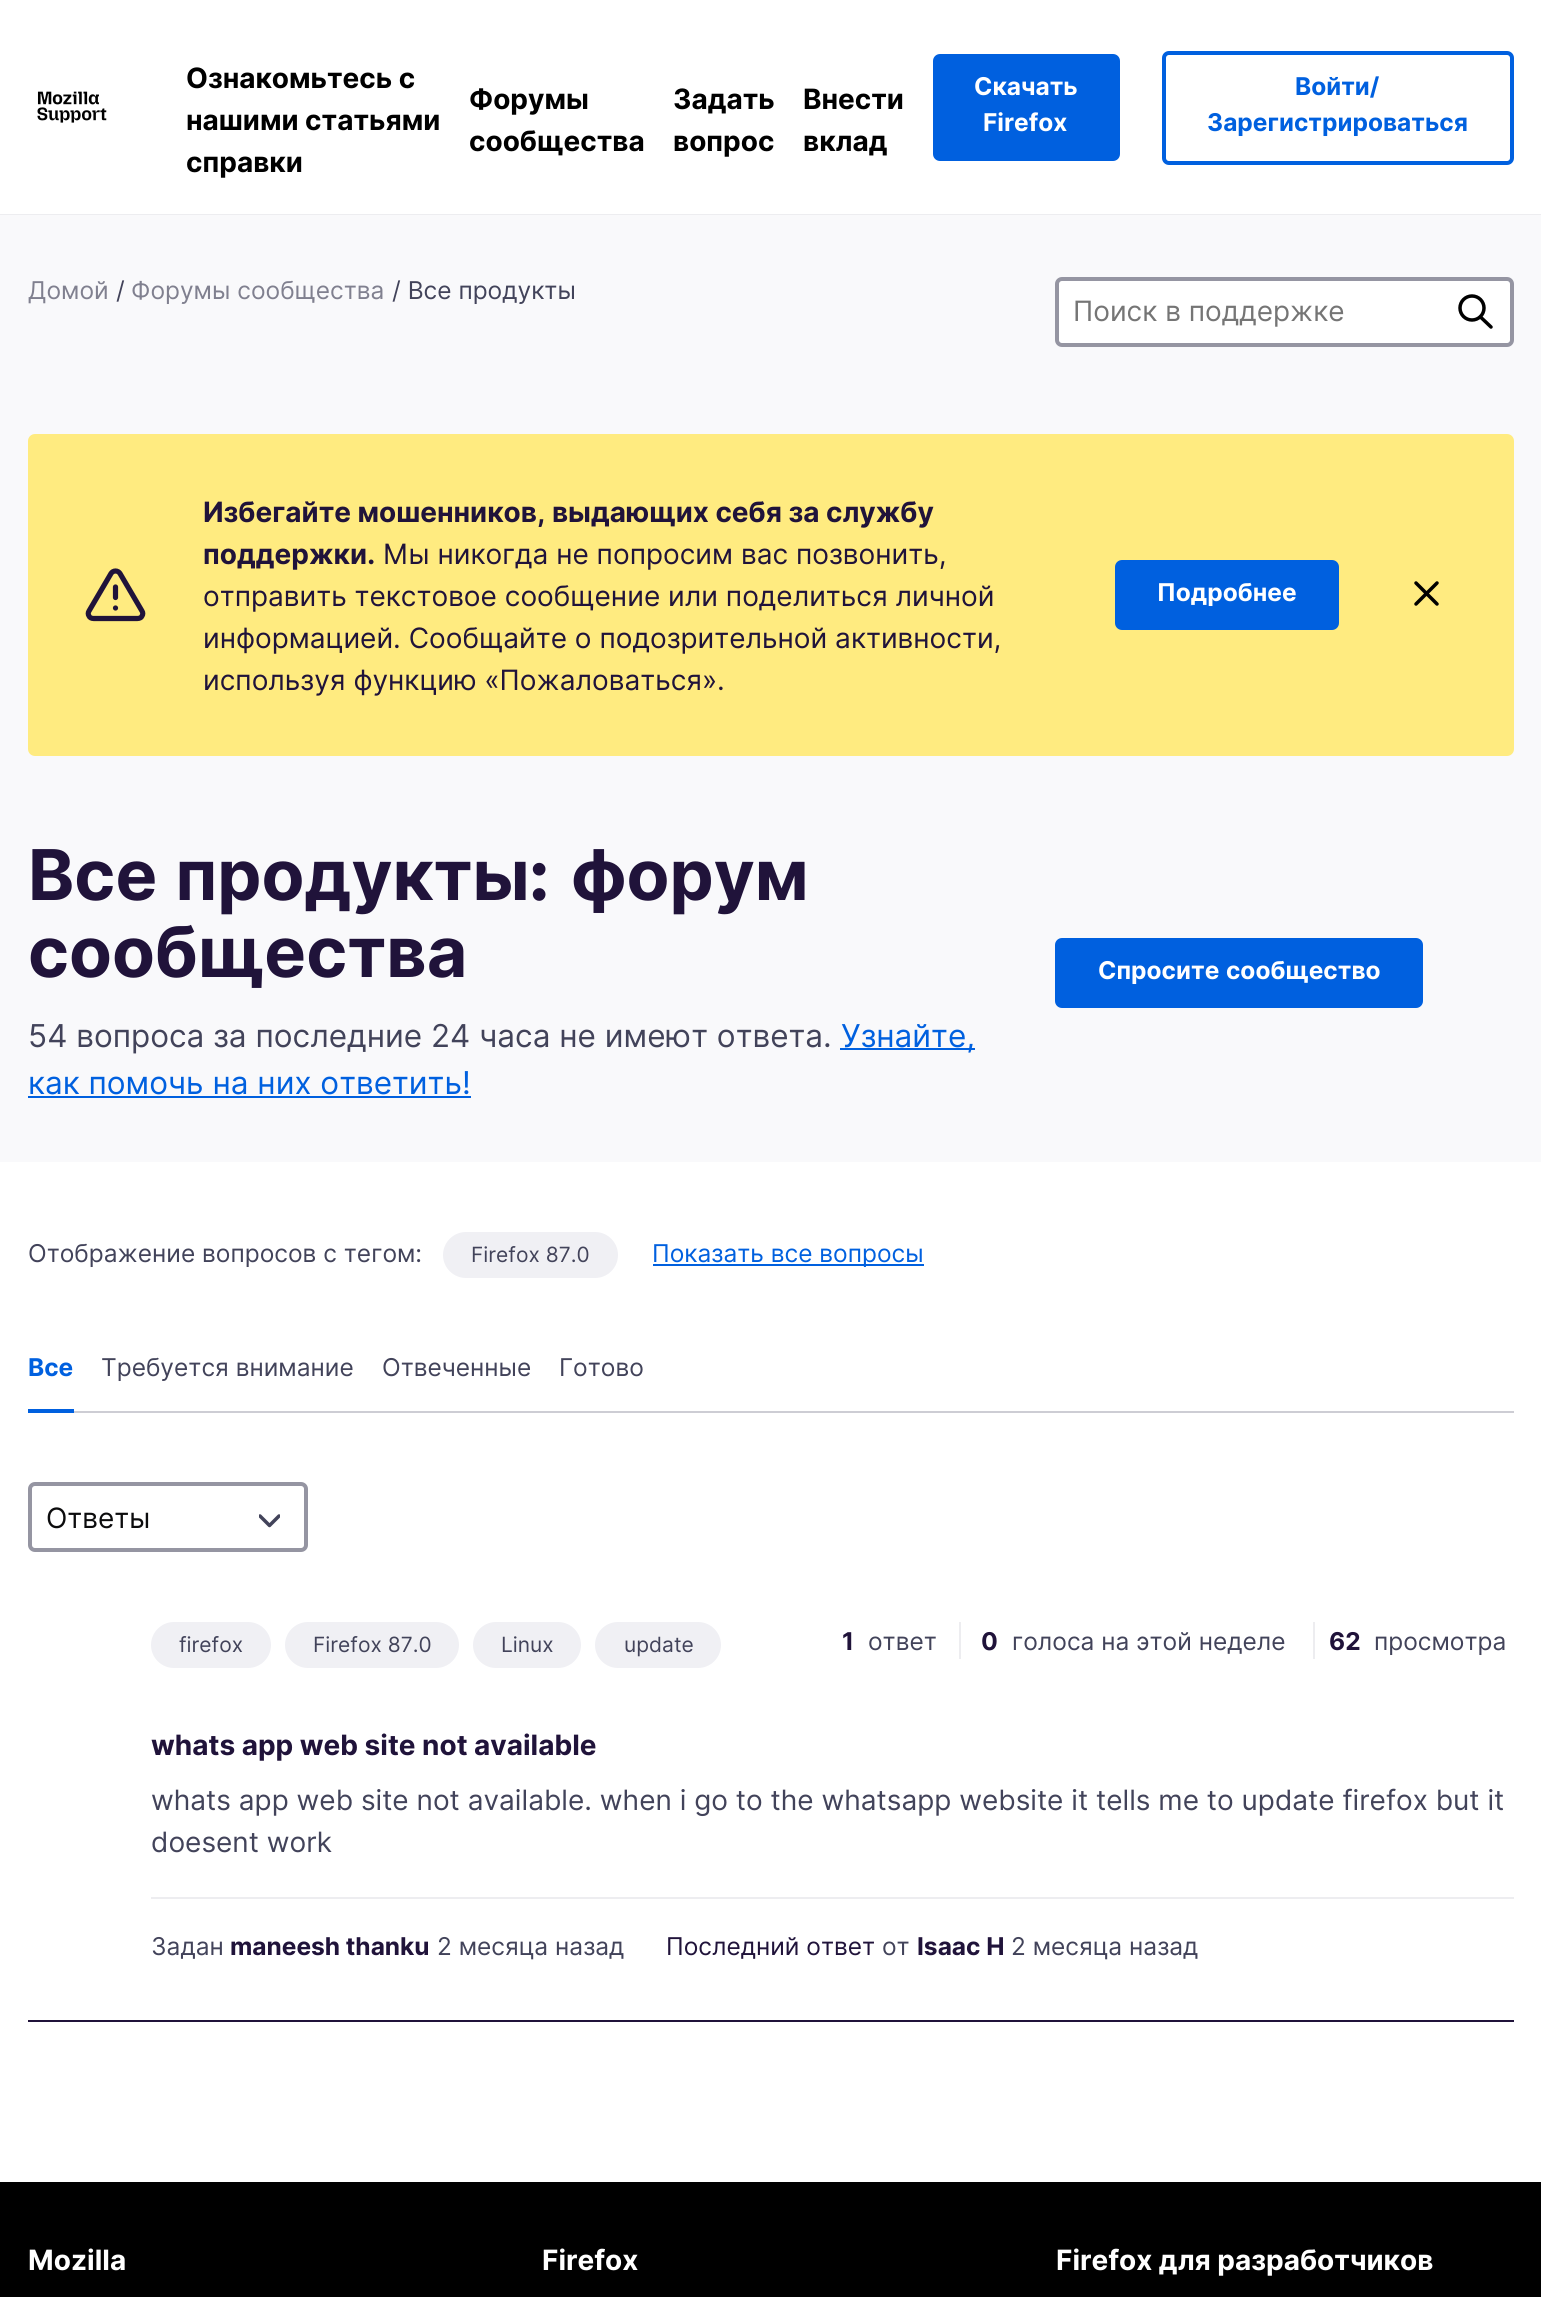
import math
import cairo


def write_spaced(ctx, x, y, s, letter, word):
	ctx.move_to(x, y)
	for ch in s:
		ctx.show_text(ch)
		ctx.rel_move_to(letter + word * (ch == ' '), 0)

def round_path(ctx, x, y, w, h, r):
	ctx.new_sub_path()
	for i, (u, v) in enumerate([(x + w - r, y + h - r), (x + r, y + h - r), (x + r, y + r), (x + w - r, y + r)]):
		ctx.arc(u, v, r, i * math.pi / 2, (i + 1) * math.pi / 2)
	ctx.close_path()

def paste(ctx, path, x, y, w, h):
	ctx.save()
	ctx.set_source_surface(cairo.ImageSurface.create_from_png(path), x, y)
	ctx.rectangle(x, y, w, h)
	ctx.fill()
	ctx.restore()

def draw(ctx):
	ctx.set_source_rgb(1, 1, 1)
	ctx.paint()
	ctx.set_source_rgb(0.929, 0.929, 0.941)
	ctx.rectangle(0, 214, 1541, 1)
	ctx.fill()
	paste(ctx, 'media/1.png', 37, 91, 70, 32)
	ctx.select_font_face('Inter', cairo.FONT_SLANT_NORMAL, cairo.FONT_WEIGHT_BOLD)
	ctx.set_font_size(28)
	ctx.set_source_rgb(0, 0, 0)
	for x, y, s in [
		(186, 88, 'Ознакомьтесь с'),
		(186, 130, 'нашими статьями'),
		(186, 172, 'справки'),
		(469, 109, 'Форумы'),
		(469, 151, 'сообщества'),
		(673, 109, 'Задать'),
		(673, 151, 'вопрос'),
		(803, 109, 'Внести'),
		(803, 151, 'вклад'),
	]:
		ctx.move_to(x, y)
		ctx.show_text(s)
	ctx.set_source_rgb(0, 0.376, 0.875)
	round_path(ctx, 933, 54, 187, 107, 7)
	ctx.fill()
	ctx.set_font_size(24.5)
	ctx.set_source_rgb(1, 1, 1)
	ctx.move_to(974, 95)
	ctx.show_text('Скачать')
	ctx.move_to(983, 131)
	ctx.show_text('Firefox')
	round_path(ctx, 1164, 53, 348, 110, 5)
	ctx.set_source_rgb(0, 0.376, 0.875)
	ctx.set_line_width(4)
	ctx.stroke()
	ctx.move_to(1295, 95)
	ctx.show_text('Войти/')
	ctx.move_to(1207, 131)
	ctx.show_text('Зарегистрироваться')
	ctx.set_source_rgb(0.976, 0.976, 0.984)
	ctx.rectangle(0, 215, 1541, 947)
	ctx.fill()
	ctx.select_font_face('Inter')
	ctx.set_source_rgb(0.502, 0.502, 0.561)
	ctx.move_to(28, 299)
	ctx.show_text('Домой')
	ctx.set_source_rgb(0.259, 0.263, 0.353)
	ctx.move_to(116, 299)
	ctx.show_text('/')
	ctx.set_source_rgb(0.502, 0.502, 0.561)
	ctx.move_to(131, 299)
	ctx.show_text('Форумы сообщества')
	ctx.set_source_rgb(0.259, 0.263, 0.353)
	ctx.move_to(392, 299)
	ctx.show_text('/ Все продукты')
	ctx.set_source_rgb(1, 1, 1)
	round_path(ctx, 1057, 279, 455, 66, 5)
	ctx.fill_preserve()
	ctx.set_source_rgb(0.584, 0.584, 0.635)
	ctx.stroke()
	ctx.set_font_size(28)
	ctx.set_source_rgb(0.459, 0.459, 0.459)
	ctx.move_to(1073, 321)
	ctx.show_text('Поиск в поддержке')
	ctx.new_path()
	ctx.arc(1472, 308, 12, 0, 2 * math.pi)
	ctx.set_source_rgb(0, 0, 0)
	ctx.set_line_width(3.5)
	ctx.stroke()
	ctx.new_path()
	ctx.move_to(1480.5, 317)
	ctx.line_to(1491, 327)
	ctx.set_line_cap(cairo.LINE_CAP_ROUND)
	ctx.stroke()
	ctx.set_source_rgb(1, 0.918, 0.502)
	round_path(ctx, 28, 434, 1486, 322, 7)
	ctx.fill()
	ctx.new_path()
	ctx.move_to(111, 573.5)
	ctx.line_to(89, 611)
	ctx.curve_to(88, 612.5, 88, 614.5, 89, 616)
	ctx.curve_to(89.5, 617.5, 91.5, 618.5, 93.5, 618.5)
	ctx.line_to(137.5, 618.5)
	ctx.curve_to(139.5, 618.5, 141.5, 617.5, 142, 616)
	ctx.curve_to(143, 614.5, 143, 612.5, 142, 611)
	ctx.line_to(120, 573.5)
	ctx.curve_to(119, 572, 117.5, 571, 115.5, 571)
	ctx.curve_to(113.5, 571, 112, 572, 111, 573.5)
	ctx.close_path()
	ctx.move_to(115.5, 587)
	ctx.line_to(115.5, 597.5)
	ctx.move_to(115.5, 608)
	ctx.line_to(115.5, 608)
	ctx.set_source_rgb(0.125, 0.075, 0.227)
	ctx.set_line_width(5.2)
	ctx.set_line_join(cairo.LINE_JOIN_ROUND)
	ctx.stroke()
	ctx.select_font_face('Inter', cairo.FONT_SLANT_NORMAL, cairo.FONT_WEIGHT_BOLD)
	ctx.move_to(203, 522)
	ctx.show_text('Избегайте мошенников, выдающих себя за службу')
	ctx.move_to(203, 564)
	ctx.show_text('поддержки.')
	ctx.select_font_face('Inter')
	for x, y, s in [
		(383, 564, 'Мы никогда не попросим вас позвонить,'),
		(203, 606, 'отправить текстовое сообщение или поделиться личной'),
		(203, 648, 'информацией. Сообщайте о подозрительной активности,'),
		(203, 690, 'используя функцию «Пожаловаться».'),
	]:
		ctx.move_to(x, y)
		ctx.show_text(s)
	ctx.set_source_rgb(0, 0.376, 0.875)
	round_path(ctx, 1115, 560, 224, 70, 7)
	ctx.fill()
	ctx.select_font_face('Inter', cairo.FONT_SLANT_NORMAL, cairo.FONT_WEIGHT_BOLD)
	ctx.set_font_size(24.5)
	ctx.set_source_rgb(1, 1, 1)
	ctx.move_to(1157, 601)
	ctx.show_text('Подробнее')
	ctx.new_path()
	ctx.move_to(1416, 583)
	ctx.line_to(1437, 604)
	ctx.move_to(1416, 604)
	ctx.line_to(1437, 583)
	ctx.set_source_rgb(0, 0, 0)
	ctx.set_line_width(3.5)
	ctx.set_line_join(cairo.LINE_JOIN_MITER)
	ctx.stroke()
	ctx.set_font_size(70)
	ctx.set_source_rgb(0.125, 0.075, 0.227)
	write_spaced(ctx, 28, 900, 'Все продукты', 0, 2)
	ctx.select_font_face('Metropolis', cairo.FONT_SLANT_NORMAL, cairo.FONT_WEIGHT_BOLD)
	ctx.move_to(529, 900)
	ctx.show_text(':')
	ctx.select_font_face('Inter', cairo.FONT_SLANT_NORMAL, cairo.FONT_WEIGHT_BOLD)
	ctx.move_to(571, 900)
	ctx.show_text('форум')
	ctx.move_to(28, 977)
	ctx.show_text('сообщества')
	ctx.select_font_face('Inter')
	ctx.set_font_size(31.5)
	ctx.set_source_rgb(0.259, 0.263, 0.353)
	ctx.move_to(28, 1047)
	ctx.show_text('54 вопроса за последние 24 часа не имеют ответа.')
	ctx.set_source_rgb(0, 0.376, 0.875)
	ctx.rectangle(840, 1048, 135, 2)
	ctx.fill()
	ctx.move_to(841, 1047)
	ctx.show_text('Узнайте,')
	ctx.move_to(28, 1094)
	ctx.show_text('как помочь на них ответить!')
	ctx.rectangle(28, 1096, 443, 2)
	ctx.fill()
	round_path(ctx, 1055, 938, 368, 70, 7)
	ctx.fill()
	ctx.select_font_face('Inter', cairo.FONT_SLANT_NORMAL, cairo.FONT_WEIGHT_BOLD)
	ctx.set_font_size(24.5)
	ctx.set_source_rgb(1, 1, 1)
	write_spaced(ctx, 1098, 979, 'Спросите сообщество', 0, 1)
	ctx.select_font_face('Inter')
	ctx.set_source_rgb(0.259, 0.263, 0.353)
	ctx.move_to(28, 1262)
	ctx.show_text('Отображение вопросов с тегом:')
	ctx.set_source_rgb(0.941, 0.941, 0.957)
	round_path(ctx, 443, 1232, 175, 46, 23)
	ctx.fill()
	ctx.set_font_size(21)
	ctx.set_source_rgb(0.259, 0.263, 0.353)
	ctx.move_to(471, 1262)
	ctx.show_text('Firefox 87.0')
	ctx.set_source_rgb(0, 0.376, 0.875)
	ctx.rectangle(653, 1264, 271, 2)
	ctx.fill()
	ctx.set_font_size(24.5)
	ctx.move_to(652, 1262)
	ctx.show_text('Показать все вопросы')
	ctx.set_source_rgb(0.804, 0.804, 0.831)
	ctx.rectangle(74, 1411, 1440, 2)
	ctx.fill()
	ctx.set_source_rgb(0, 0.376, 0.875)
	ctx.rectangle(28, 1409, 46, 4)
	ctx.fill()
	ctx.select_font_face('Inter', cairo.FONT_SLANT_NORMAL, cairo.FONT_WEIGHT_BOLD)
	ctx.move_to(28, 1376)
	ctx.show_text('Все')
	ctx.select_font_face('Inter')
	ctx.set_source_rgb(0.259, 0.263, 0.353)
	for x, y, s in [
		(101, 1376, 'Требуется внимание'),
		(382, 1376, 'Отвеченные'),
		(559, 1376, 'Готово'),
	]:
		ctx.move_to(x, y)
		ctx.show_text(s)
	ctx.save()
	ctx.rectangle(259, 1510, 21, 21)
	ctx.clip()
	ctx.new_path()
	ctx.move_to(260, 1516)
	ctx.line_to(269.5, 1525.5)
	ctx.line_to(279, 1516)
	ctx.set_line_join(cairo.LINE_JOIN_ROUND)
	ctx.stroke()
	ctx.restore()
	round_path(ctx, 30, 1484, 276, 66, 5)
	ctx.set_source_rgb(0.584, 0.584, 0.635)
	ctx.set_line_width(4)
	ctx.set_line_cap(cairo.LINE_CAP_BUTT)
	ctx.stroke()
	ctx.set_font_size(28)
	ctx.set_source_rgb(0.047, 0.047, 0.051)
	ctx.move_to(46, 1528)
	ctx.show_text('Ответы')
	ctx.set_source_rgb(0.125, 0.075, 0.227)
	ctx.rectangle(28, 2020, 1486, 2)
	ctx.fill()
	ctx.set_source_rgb(0.941, 0.941, 0.957)
	round_path(ctx, 151, 1622, 120, 46, 23)
	ctx.fill()
	ctx.set_font_size(21)
	ctx.set_source_rgb(0.259, 0.263, 0.353)
	ctx.move_to(179, 1652)
	ctx.show_text('firefox')
	ctx.set_source_rgb(0.941, 0.941, 0.957)
	round_path(ctx, 285, 1622, 174, 46, 23)
	ctx.fill()
	ctx.set_source_rgb(0.259, 0.263, 0.353)
	ctx.move_to(313, 1652)
	ctx.show_text('Firefox 87.0')
	ctx.set_source_rgb(0.941, 0.941, 0.957)
	round_path(ctx, 473, 1622, 108, 46, 23)
	ctx.fill()
	ctx.set_source_rgb(0.259, 0.263, 0.353)
	ctx.move_to(501, 1652)
	ctx.show_text('Linux')
	ctx.set_source_rgb(0.941, 0.941, 0.957)
	round_path(ctx, 595, 1622, 126, 46, 23)
	ctx.fill()
	ctx.set_source_rgb(0.259, 0.263, 0.353)
	ctx.move_to(624, 1652)
	ctx.show_text('update')
	ctx.select_font_face('Inter', cairo.FONT_SLANT_NORMAL, cairo.FONT_WEIGHT_BOLD)
	ctx.set_font_size(24.5)
	ctx.set_source_rgb(0.125, 0.075, 0.227)
	ctx.move_to(842, 1650)
	ctx.show_text('1')
	ctx.select_font_face('Inter')
	ctx.set_source_rgb(0.259, 0.263, 0.353)
	ctx.move_to(868, 1650)
	ctx.show_text('ответ')
	ctx.set_source_rgb(0.929, 0.929, 0.941)
	ctx.rectangle(959, 1622, 2, 37)
	ctx.fill()
	ctx.select_font_face('Inter', cairo.FONT_SLANT_NORMAL, cairo.FONT_WEIGHT_BOLD)
	ctx.set_source_rgb(0.125, 0.075, 0.227)
	ctx.move_to(981, 1650)
	ctx.show_text('0')
	ctx.select_font_face('Inter')
	ctx.set_source_rgb(0.259, 0.263, 0.353)
	ctx.move_to(1012, 1650)
	ctx.show_text('голоса на этой неделе')
	ctx.set_source_rgb(0.929, 0.929, 0.941)
	ctx.rectangle(1313, 1622, 2, 37)
	ctx.fill()
	ctx.select_font_face('Inter', cairo.FONT_SLANT_NORMAL, cairo.FONT_WEIGHT_BOLD)
	ctx.set_source_rgb(0.125, 0.075, 0.227)
	ctx.move_to(1329, 1650)
	ctx.show_text('62')
	ctx.select_font_face('Inter')
	ctx.set_source_rgb(0.259, 0.263, 0.353)
	ctx.move_to(1374, 1650)
	ctx.show_text('просмотра')
	ctx.select_font_face('Inter', cairo.FONT_SLANT_NORMAL, cairo.FONT_WEIGHT_BOLD)
	ctx.set_font_size(28)
	ctx.set_source_rgb(0.125, 0.075, 0.227)
	ctx.move_to(151, 1755)
	ctx.show_text('whats app web site not available')
	ctx.select_font_face('Inter')
	ctx.set_source_rgb(0.259, 0.263, 0.353)
	ctx.move_to(151, 1810)
	ctx.show_text('whats app web site not available. when i go to the whatsapp website it tells me to update firefox but it')
	ctx.move_to(151, 1852)
	ctx.show_text('doesent work')
	ctx.set_source_rgb(0.929, 0.929, 0.941)
	ctx.rectangle(151, 1897, 1363, 2)
	ctx.fill()
	ctx.set_font_size(24.5)
	ctx.set_source_rgb(0.259, 0.263, 0.353)
	ctx.move_to(151, 1955)
	ctx.show_text('Задан')
	ctx.select_font_face('Inter', cairo.FONT_SLANT_NORMAL, cairo.FONT_WEIGHT_BOLD)
	ctx.set_source_rgb(0.125, 0.075, 0.227)
	ctx.move_to(230, 1955)
	ctx.show_text('maneesh thanku')
	ctx.select_font_face('Inter')
	ctx.set_source_rgb(0.259, 0.263, 0.353)
	ctx.move_to(437, 1955)
	ctx.show_text('2 месяца назад')
	ctx.set_source_rgb(0.125, 0.075, 0.227)
	ctx.move_to(666, 1955)
	ctx.show_text('Последний ответ')
	ctx.set_source_rgb(0.259, 0.263, 0.353)
	ctx.move_to(882, 1955)
	ctx.show_text('от')
	ctx.select_font_face('Inter', cairo.FONT_SLANT_NORMAL, cairo.FONT_WEIGHT_BOLD)
	ctx.set_source_rgb(0.125, 0.075, 0.227)
	ctx.move_to(917, 1955)
	ctx.show_text('Isaac H')
	ctx.select_font_face('Inter')
	ctx.set_source_rgb(0.259, 0.263, 0.353)
	ctx.move_to(1011, 1955)
	ctx.show_text('2 месяца назад')
	ctx.set_source_rgb(0, 0, 0)
	ctx.rectangle(0, 2182, 1541, 115)
	ctx.fill()
	ctx.select_font_face('Inter', cairo.FONT_SLANT_NORMAL, cairo.FONT_WEIGHT_BOLD)
	ctx.set_font_size(28)
	ctx.set_source_rgb(1, 1, 1)
	for x, y, s in [
		(28, 2270, 'Mozilla'),
		(542, 2270, 'Firefox'),
		(1056, 2270, 'Firefox для разработчиков'),
	]:
		ctx.move_to(x, y)
		ctx.show_text(s)


surface = cairo.ImageSurface(cairo.FORMAT_RGB24, 1541, 2297)
ctx = cairo.Context(surface)
options = cairo.FontOptions()
options.set_hint_metrics(cairo.HINT_METRICS_OFF)
options.set_hint_style(cairo.HINT_STYLE_NONE)
ctx.set_font_options(options)
ctx.set_miter_limit(4)
draw(ctx)
surface.write_to_png('image.png')
